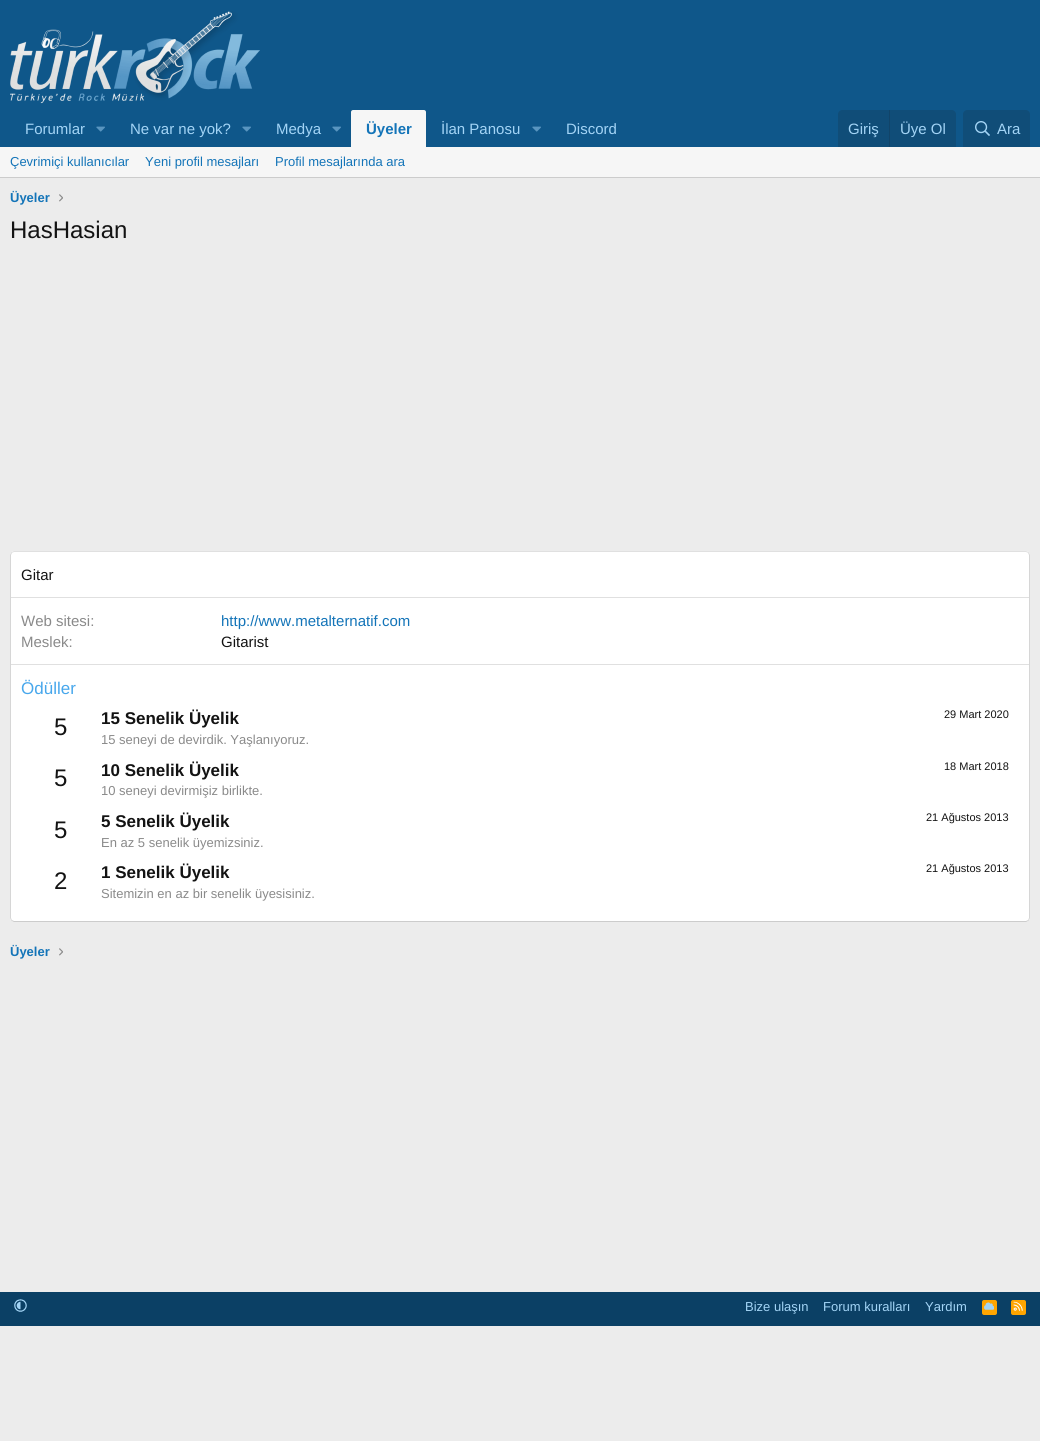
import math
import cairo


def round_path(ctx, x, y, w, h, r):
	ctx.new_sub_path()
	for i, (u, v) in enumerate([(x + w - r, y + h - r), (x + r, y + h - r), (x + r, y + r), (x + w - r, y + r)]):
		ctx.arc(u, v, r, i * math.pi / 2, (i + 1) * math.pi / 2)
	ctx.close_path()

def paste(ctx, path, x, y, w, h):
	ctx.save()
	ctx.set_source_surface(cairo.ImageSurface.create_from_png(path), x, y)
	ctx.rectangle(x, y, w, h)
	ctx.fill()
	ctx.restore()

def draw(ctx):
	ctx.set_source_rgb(0.922, 0.922, 0.922)
	ctx.paint()
	ctx.set_source_rgb(0.059, 0.341, 0.541)
	ctx.rectangle(0, 0, 1040, 147)
	ctx.fill()
	paste(ctx, 'media/1.png', 10, 11, 250, 93)
	ctx.select_font_face('Liberation Sans')
	ctx.set_font_size(15)
	ctx.set_source_rgb(0.639, 0.831, 0.961)
	ctx.move_to(25, 134)
	ctx.show_text('Forumlar')
	paste(ctx, 'media/2.png', 96, 126, 9, 6)
	ctx.move_to(130, 134)
	ctx.show_text('Ne var ne yok?')
	paste(ctx, 'media/2.png', 242, 126, 9, 6)
	ctx.move_to(276, 134)
	ctx.show_text('Medya')
	paste(ctx, 'media/2.png', 332, 126, 9, 6)
	ctx.set_source_rgb(0.961, 0.961, 0.961)
	ctx.new_path()
	ctx.move_to(353, 110)
	ctx.line_to(424, 110)
	ctx.curve_to(425, 110, 426, 111, 426, 112)
	ctx.line_to(426, 147)
	ctx.line_to(351, 147)
	ctx.line_to(351, 112)
	ctx.curve_to(351, 111, 352, 110, 353, 110)
	ctx.close_path()
	ctx.fill()
	ctx.select_font_face('Liberation Sans', cairo.FONT_SLANT_NORMAL, cairo.FONT_WEIGHT_BOLD)
	ctx.set_source_rgb(0.078, 0.455, 0.722)
	ctx.move_to(366, 134)
	ctx.show_text('Üyeler')
	ctx.select_font_face('Liberation Sans')
	ctx.set_source_rgb(0.639, 0.831, 0.961)
	ctx.move_to(441, 134)
	ctx.show_text('İlan Panosu')
	paste(ctx, 'media/2.png', 532, 126, 9, 6)
	ctx.move_to(566, 134)
	ctx.show_text('Discord')
	ctx.set_source_rgb(0.063, 0.302, 0.471)
	ctx.new_path()
	ctx.move_to(842, 110)
	ctx.line_to(952, 110)
	ctx.curve_to(954, 110, 956, 112, 956, 114)
	ctx.line_to(956, 147)
	ctx.line_to(838, 147)
	ctx.line_to(838, 114)
	ctx.curve_to(838, 112, 840, 110, 842, 110)
	ctx.close_path()
	ctx.fill()
	ctx.set_source_rgb(0.639, 0.831, 0.961)
	ctx.move_to(848, 134)
	ctx.show_text('Giriş')
	ctx.set_source_rgb(0.067, 0.267, 0.412)
	ctx.rectangle(889, 110, 1, 37)
	ctx.fill()
	ctx.set_source_rgb(0.639, 0.831, 0.961)
	ctx.move_to(900, 134)
	ctx.show_text('Üye Ol')
	ctx.set_source_rgb(0.063, 0.302, 0.471)
	ctx.new_path()
	ctx.move_to(967, 110)
	ctx.line_to(1026, 110)
	ctx.curve_to(1028, 110, 1030, 112, 1030, 114)
	ctx.line_to(1030, 147)
	ctx.line_to(963, 147)
	ctx.line_to(963, 114)
	ctx.curve_to(963, 112, 965, 110, 967, 110)
	ctx.close_path()
	ctx.fill()
	paste(ctx, 'media/3.png', 975, 121, 15, 15)
	ctx.set_source_rgb(0.639, 0.831, 0.961)
	ctx.move_to(997, 134)
	ctx.show_text('Ara')
	ctx.set_source_rgb(0.961, 0.961, 0.961)
	ctx.rectangle(0, 147, 1040, 30)
	ctx.fill()
	ctx.set_source_rgb(0.8, 0.8, 0.8)
	ctx.rectangle(0, 177, 1040, 1)
	ctx.fill()
	ctx.set_font_size(13)
	ctx.set_source_rgb(0.078, 0.455, 0.722)
	for x, y, s in [
		(10, 166, 'Çevrimiçi kullanıcılar'),
		(145, 166, 'Yeni profil mesajları'),
		(275, 166, 'Profil mesajlarında ara'),
	]:
		ctx.move_to(x, y)
		ctx.show_text(s)
	ctx.select_font_face('Liberation Sans', cairo.FONT_SLANT_NORMAL, cairo.FONT_WEIGHT_BOLD)
	ctx.move_to(10, 202)
	ctx.show_text('Üyeler')
	paste(ctx, 'media/4.png', 59, 194, 4, 8)
	ctx.select_font_face('Liberation Sans')
	ctx.set_font_size(24)
	ctx.set_source_rgb(0.078, 0.078, 0.078)
	ctx.move_to(10, 238)
	ctx.show_text('HasHasian')
	ctx.set_source_rgb(1, 1, 1)
	round_path(ctx, 10, 551, 1020, 371, 4)
	ctx.fill()
	ctx.new_path()
	ctx.move_to(11.5, 552.5)
	ctx.line_to(14, 551.5)
	ctx.line_to(1026, 551.5)
	ctx.line_to(1028.5, 552.5)
	ctx.set_source_rgb(0.878, 0.878, 0.878)
	ctx.set_line_width(1)
	ctx.stroke()
	ctx.new_path()
	ctx.move_to(1028.5, 552.5)
	ctx.line_to(1029.5, 555)
	ctx.line_to(1029.5, 918)
	ctx.line_to(1028.5, 920.5)
	ctx.set_source_rgb(0.839, 0.839, 0.839)
	ctx.stroke()
	ctx.new_path()
	ctx.move_to(1028.5, 920.5)
	ctx.line_to(1026, 921.5)
	ctx.line_to(14, 921.5)
	ctx.line_to(11.5, 920.5)
	ctx.set_source_rgb(0.8, 0.8, 0.8)
	ctx.stroke()
	ctx.new_path()
	ctx.move_to(11.5, 920.5)
	ctx.line_to(10.5, 918)
	ctx.line_to(10.5, 555)
	ctx.line_to(11.5, 552.5)
	ctx.set_source_rgb(0.839, 0.839, 0.839)
	ctx.stroke()
	ctx.set_font_size(15)
	ctx.set_source_rgb(0.078, 0.078, 0.078)
	ctx.move_to(21, 580)
	ctx.show_text('Gitar')
	ctx.set_source_rgb(0.878, 0.878, 0.878)
	ctx.rectangle(11, 597, 1018, 1)
	ctx.fill()
	ctx.set_source_rgb(0.541, 0.541, 0.541)
	ctx.move_to(21, 626)
	ctx.show_text('Web sitesi:')
	ctx.set_source_rgb(0.078, 0.455, 0.722)
	ctx.move_to(221, 626)
	ctx.show_text('http://www.metalternatif.com')
	ctx.set_source_rgb(0.541, 0.541, 0.541)
	ctx.move_to(21, 647)
	ctx.show_text('Meslek:')
	ctx.set_source_rgb(0.078, 0.078, 0.078)
	ctx.move_to(221, 647)
	ctx.show_text('Gitarist')
	ctx.set_source_rgb(0.878, 0.878, 0.878)
	ctx.rectangle(11, 664, 1018, 1)
	ctx.fill()
	ctx.set_font_size(17)
	ctx.set_source_rgb(0.278, 0.655, 0.922)
	ctx.move_to(21, 694)
	ctx.show_text('Ödüller')
	ctx.set_font_size(24)
	ctx.set_source_rgb(0.078, 0.078, 0.078)
	ctx.move_to(54, 735)
	ctx.show_text('5')
	ctx.select_font_face('Liberation Sans', cairo.FONT_SLANT_NORMAL, cairo.FONT_WEIGHT_BOLD)
	ctx.set_font_size(17)
	ctx.move_to(101, 724)
	ctx.show_text('15 Senelik Üyelik')
	ctx.select_font_face('Liberation Sans')
	ctx.set_font_size(11)
	ctx.move_to(944, 718)
	ctx.show_text('29 Mart 2020')
	ctx.set_font_size(13)
	ctx.set_source_rgb(0.541, 0.541, 0.541)
	ctx.move_to(101, 744)
	ctx.show_text('15 seneyi de devirdik. Yaşlanıyoruz.')
	ctx.set_font_size(24)
	ctx.set_source_rgb(0.078, 0.078, 0.078)
	ctx.move_to(54, 786)
	ctx.show_text('5')
	ctx.select_font_face('Liberation Sans', cairo.FONT_SLANT_NORMAL, cairo.FONT_WEIGHT_BOLD)
	ctx.set_font_size(17)
	ctx.move_to(101, 776)
	ctx.show_text('10 Senelik Üyelik')
	ctx.select_font_face('Liberation Sans')
	ctx.set_font_size(11)
	ctx.move_to(944, 770)
	ctx.show_text('18 Mart 2018')
	ctx.set_font_size(13)
	ctx.set_source_rgb(0.541, 0.541, 0.541)
	ctx.move_to(101, 795)
	ctx.show_text('10 seneyi devirmişiz birlikte.')
	ctx.set_font_size(24)
	ctx.set_source_rgb(0.078, 0.078, 0.078)
	ctx.move_to(54, 838)
	ctx.show_text('5')
	ctx.select_font_face('Liberation Sans', cairo.FONT_SLANT_NORMAL, cairo.FONT_WEIGHT_BOLD)
	ctx.set_font_size(17)
	ctx.move_to(101, 827)
	ctx.show_text('5 Senelik Üyelik')
	ctx.select_font_face('Liberation Sans')
	ctx.set_font_size(11)
	ctx.move_to(926, 821)
	ctx.show_text('21 Ağustos 2013')
	ctx.set_font_size(13)
	ctx.set_source_rgb(0.541, 0.541, 0.541)
	ctx.move_to(101, 847)
	ctx.show_text('En az 5 senelik üyemizsiniz.')
	ctx.set_font_size(24)
	ctx.set_source_rgb(0.078, 0.078, 0.078)
	ctx.move_to(54, 889)
	ctx.show_text('2')
	ctx.select_font_face('Liberation Sans', cairo.FONT_SLANT_NORMAL, cairo.FONT_WEIGHT_BOLD)
	ctx.set_font_size(17)
	ctx.move_to(101, 878)
	ctx.show_text('1 Senelik Üyelik')
	ctx.select_font_face('Liberation Sans')
	ctx.set_font_size(11)
	ctx.move_to(926, 872)
	ctx.show_text('21 Ağustos 2013')
	ctx.set_font_size(13)
	ctx.set_source_rgb(0.541, 0.541, 0.541)
	ctx.move_to(101, 898)
	ctx.show_text('Sitemizin en az bir senelik üyesisiniz.')
	ctx.select_font_face('Liberation Sans', cairo.FONT_SLANT_NORMAL, cairo.FONT_WEIGHT_BOLD)
	ctx.set_source_rgb(0.078, 0.455, 0.722)
	ctx.move_to(10, 956)
	ctx.show_text('Üyeler')
	paste(ctx, 'media/4.png', 59, 948, 4, 8)
	ctx.set_source_rgb(0.043, 0.251, 0.396)
	ctx.rectangle(0, 1292, 1040, 34)
	ctx.fill()
	paste(ctx, 'media/5.png', 14, 1299, 13, 13)
	ctx.select_font_face('Liberation Sans')
	ctx.set_source_rgb(0.639, 0.831, 0.961)
	for x, y, s in [
		(745, 1311, 'Bize ulaşın'),
		(823, 1311, 'Forum kuralları'),
		(925, 1311, 'Yardım'),
	]:
		ctx.move_to(x, y)
		ctx.show_text(s)
	ctx.set_source_rgb(1, 0.647, 0)
	round_path(ctx, 982, 1300, 15, 15, 2)
	ctx.fill()
	paste(ctx, 'media/6.png', 984, 1302, 10, 8)
	round_path(ctx, 1011, 1300, 15, 15, 2)
	ctx.fill()
	paste(ctx, 'media/7.png', 1013, 1301, 10, 10)


surface = cairo.ImageSurface(cairo.FORMAT_RGB24, 1040, 1441)
ctx = cairo.Context(surface)
options = cairo.FontOptions()
options.set_hint_metrics(cairo.HINT_METRICS_OFF)
options.set_hint_style(cairo.HINT_STYLE_NONE)
ctx.set_font_options(options)
ctx.set_miter_limit(4)
draw(ctx)
surface.write_to_png('image.png')
